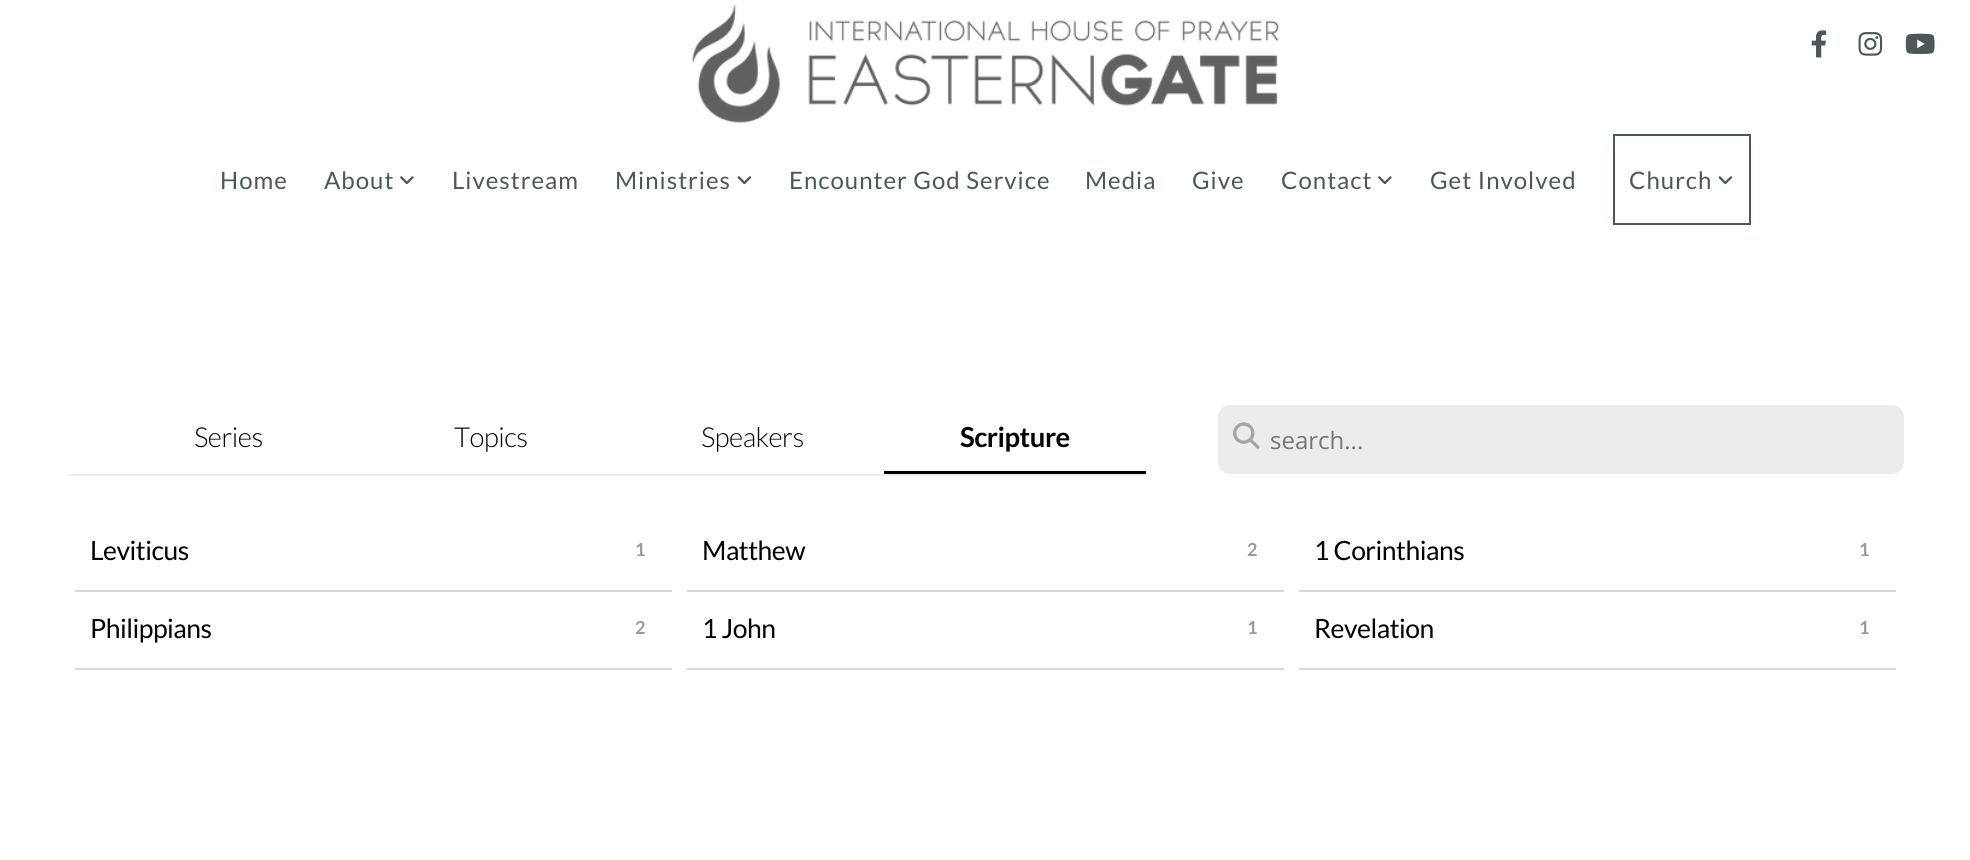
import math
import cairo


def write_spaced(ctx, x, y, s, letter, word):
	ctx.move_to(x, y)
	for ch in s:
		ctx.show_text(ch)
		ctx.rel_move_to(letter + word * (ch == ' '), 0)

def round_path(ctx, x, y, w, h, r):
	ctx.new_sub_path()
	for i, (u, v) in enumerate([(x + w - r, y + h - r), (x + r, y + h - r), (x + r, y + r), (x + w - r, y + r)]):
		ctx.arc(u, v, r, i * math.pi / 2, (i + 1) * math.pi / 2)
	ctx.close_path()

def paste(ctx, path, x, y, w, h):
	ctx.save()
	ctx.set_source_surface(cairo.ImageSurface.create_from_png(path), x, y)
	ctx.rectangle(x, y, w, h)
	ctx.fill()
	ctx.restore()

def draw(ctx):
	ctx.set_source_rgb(1, 1, 1)
	ctx.paint()
	paste(ctx, 'media/1.png', 691, 4, 588, 119)
	paste(ctx, 'media/2.png', 1811, 30, 16, 28)
	paste(ctx, 'media/3.png', 1858, 32, 25, 24)
	paste(ctx, 'media/4.png', 1905, 33, 30, 21)
	ctx.select_font_face('Lato')
	ctx.set_font_size(24)
	ctx.set_source_rgb(0.298, 0.341, 0.345)
	write_spaced(ctx, 220, 189, 'Home', 1, 0)
	write_spaced(ctx, 324, 189, 'About', 1, 0)
	paste(ctx, 'media/5.png', 400, 176, 14, 9)
	write_spaced(ctx, 452, 189, 'Livestream', 1, 0)
	write_spaced(ctx, 615, 189, 'Ministries', 1, 0)
	paste(ctx, 'media/6.png', 737, 176, 15, 9)
	for x, y, s in [
		(789, 189, 'Encounter God Service'),
		(1085, 189, 'Media'),
		(1192, 189, 'Give'),
		(1281, 189, 'Contact'),
	]:
		write_spaced(ctx, x, y, s, 1, 0)
	paste(ctx, 'media/5.png', 1378, 176, 14, 9)
	write_spaced(ctx, 1430, 189, 'Get Involved', 1, 0)
	ctx.rectangle(1614, 135, 136, 89)
	ctx.stroke()
	write_spaced(ctx, 1629, 189, 'Church', 1, 0)
	paste(ctx, 'media/6.png', 1718, 176, 15, 9)
	ctx.set_source_rgb(0.929, 0.933, 0.941)
	ctx.rectangle(68, 474, 1078, 2)
	ctx.fill()
	ctx.select_font_face('Lato Light')
	ctx.set_font_size(27.5)
	ctx.set_source_rgb(0, 0, 0)
	for x, y, s in [
		(194, 447, 'Series'),
		(454, 447, 'Topics'),
		(701, 447, 'Speakers'),
	]:
		write_spaced(ctx, x, y, s, -0.5, 0)
	ctx.rectangle(884, 471, 262, 3)
	ctx.fill()
	ctx.select_font_face('Lato', cairo.FONT_SLANT_NORMAL, cairo.FONT_WEIGHT_BOLD)
	write_spaced(ctx, 960, 447, 'Scripture', -0.5, 0)
	ctx.set_source_rgb(0.922, 0.922, 0.922)
	round_path(ctx, 1218, 405, 686, 69, 12)
	ctx.fill()
	paste(ctx, 'media/7.png', 1233, 422, 27, 27)
	ctx.select_font_face('Open Sans')
	ctx.set_font_size(24)
	ctx.set_source_rgb(0.463, 0.463, 0.463)
	ctx.move_to(1270, 449)
	ctx.show_text('search...')
	ctx.select_font_face('Lato')
	ctx.set_font_size(26.5)
	ctx.set_source_rgb(0, 0, 0)
	write_spaced(ctx, 90, 560, 'Leviticus', -0.5, 0)
	ctx.select_font_face('Lato', cairo.FONT_SLANT_NORMAL, cairo.FONT_WEIGHT_BOLD)
	ctx.set_font_size(18)
	ctx.set_source_rgb(0.6, 0.6, 0.6)
	write_spaced(ctx, 635, 556, '1', -0.5, 0)
	ctx.set_source_rgb(0.851, 0.851, 0.851)
	ctx.rectangle(75, 590, 597, 2)
	ctx.fill()
	ctx.select_font_face('Lato')
	ctx.set_font_size(26.5)
	ctx.set_source_rgb(0, 0, 0)
	write_spaced(ctx, 702, 560, 'Matthew', -0.5, 0)
	ctx.select_font_face('Lato', cairo.FONT_SLANT_NORMAL, cairo.FONT_WEIGHT_BOLD)
	ctx.set_font_size(18)
	ctx.set_source_rgb(0.6, 0.6, 0.6)
	write_spaced(ctx, 1247, 556, '2', -0.5, 0)
	ctx.set_source_rgb(0.851, 0.851, 0.851)
	ctx.rectangle(687, 590, 597, 2)
	ctx.fill()
	ctx.select_font_face('Lato')
	ctx.set_font_size(26.5)
	ctx.set_source_rgb(0, 0, 0)
	write_spaced(ctx, 1314, 560, '1 Corinthians', -0.5, 0)
	ctx.select_font_face('Lato', cairo.FONT_SLANT_NORMAL, cairo.FONT_WEIGHT_BOLD)
	ctx.set_font_size(18)
	ctx.set_source_rgb(0.6, 0.6, 0.6)
	write_spaced(ctx, 1859, 556, '1', -0.5, 0)
	ctx.set_source_rgb(0.851, 0.851, 0.851)
	ctx.rectangle(1299, 590, 597, 2)
	ctx.fill()
	ctx.select_font_face('Lato')
	ctx.set_font_size(26.5)
	ctx.set_source_rgb(0, 0, 0)
	write_spaced(ctx, 90, 638, 'Philippians', -0.5, 0)
	ctx.select_font_face('Lato', cairo.FONT_SLANT_NORMAL, cairo.FONT_WEIGHT_BOLD)
	ctx.set_font_size(18)
	ctx.set_source_rgb(0.6, 0.6, 0.6)
	write_spaced(ctx, 635, 634, '2', -0.5, 0)
	ctx.set_source_rgb(0.851, 0.851, 0.851)
	ctx.rectangle(75, 668, 597, 2)
	ctx.fill()
	ctx.select_font_face('Lato')
	ctx.set_font_size(26.5)
	ctx.set_source_rgb(0, 0, 0)
	write_spaced(ctx, 702, 638, '1 John', -0.5, 0)
	ctx.select_font_face('Lato', cairo.FONT_SLANT_NORMAL, cairo.FONT_WEIGHT_BOLD)
	ctx.set_font_size(18)
	ctx.set_source_rgb(0.6, 0.6, 0.6)
	write_spaced(ctx, 1247, 634, '1', -0.5, 0)
	ctx.set_source_rgb(0.851, 0.851, 0.851)
	ctx.rectangle(687, 668, 597, 2)
	ctx.fill()
	ctx.select_font_face('Lato')
	ctx.set_font_size(26.5)
	ctx.set_source_rgb(0, 0, 0)
	write_spaced(ctx, 1314, 638, 'Revelation', -0.5, 0)
	ctx.select_font_face('Lato', cairo.FONT_SLANT_NORMAL, cairo.FONT_WEIGHT_BOLD)
	ctx.set_font_size(18)
	ctx.set_source_rgb(0.6, 0.6, 0.6)
	write_spaced(ctx, 1859, 634, '1', -0.5, 0)
	ctx.set_source_rgb(0.851, 0.851, 0.851)
	ctx.rectangle(1299, 668, 597, 2)
	ctx.fill()


surface = cairo.ImageSurface(cairo.FORMAT_RGB24, 1970, 860)
ctx = cairo.Context(surface)
options = cairo.FontOptions()
options.set_hint_metrics(cairo.HINT_METRICS_OFF)
options.set_hint_style(cairo.HINT_STYLE_NONE)
ctx.set_font_options(options)
ctx.set_miter_limit(4)
draw(ctx)
surface.write_to_png('image.png')
